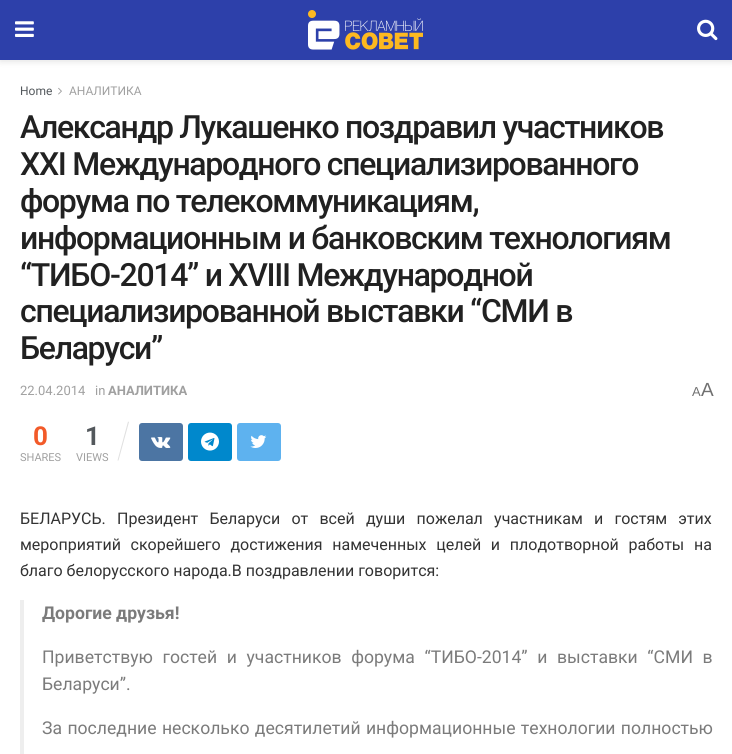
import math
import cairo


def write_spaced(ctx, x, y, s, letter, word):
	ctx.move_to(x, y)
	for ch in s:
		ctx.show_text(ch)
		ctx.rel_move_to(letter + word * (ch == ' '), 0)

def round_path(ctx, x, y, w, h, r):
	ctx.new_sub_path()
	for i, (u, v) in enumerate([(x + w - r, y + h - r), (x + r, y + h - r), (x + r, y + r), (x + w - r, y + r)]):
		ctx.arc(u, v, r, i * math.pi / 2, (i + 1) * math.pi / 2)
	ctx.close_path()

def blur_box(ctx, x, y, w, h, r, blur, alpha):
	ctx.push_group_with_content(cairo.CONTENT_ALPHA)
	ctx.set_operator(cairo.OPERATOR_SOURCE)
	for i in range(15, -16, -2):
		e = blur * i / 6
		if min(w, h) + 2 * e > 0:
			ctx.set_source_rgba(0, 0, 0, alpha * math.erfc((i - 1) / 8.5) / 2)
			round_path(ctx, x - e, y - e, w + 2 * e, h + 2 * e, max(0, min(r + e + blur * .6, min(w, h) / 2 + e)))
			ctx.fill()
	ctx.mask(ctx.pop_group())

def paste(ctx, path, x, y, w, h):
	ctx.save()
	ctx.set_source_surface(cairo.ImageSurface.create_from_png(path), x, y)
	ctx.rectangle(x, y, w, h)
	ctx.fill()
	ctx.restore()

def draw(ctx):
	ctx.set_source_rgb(1, 1, 1)
	ctx.paint()
	ctx.set_source_rgb(0, 0, 0)
	blur_box(ctx, 0, 2, 732, 60, 0, 3, 0.1)
	ctx.set_source_rgb(0.176, 0.251, 0.667)
	ctx.rectangle(0, 0, 732, 60)
	ctx.fill()
	paste(ctx, 'media/1.png', 15, 21, 19, 16)
	paste(ctx, 'media/2.png', 308, 10, 115, 40)
	paste(ctx, 'media/3.png', 697, 19, 21, 22)
	ctx.select_font_face('Roboto')
	ctx.set_font_size(12)
	ctx.set_source_rgb(0.325, 0.345, 0.361)
	ctx.move_to(20, 95)
	ctx.show_text('Home')
	paste(ctx, 'media/4.png', 58, 87, 4, 8)
	ctx.set_source_rgb(0.627, 0.627, 0.627)
	ctx.move_to(69, 95)
	ctx.show_text('АНАЛИТИКА')
	ctx.select_font_face('Roboto Medium')
	ctx.set_font_size(32)
	ctx.set_source_rgb(0.129, 0.129, 0.129)
	for x, y, s in [
		(20, 138, 'Александр Лукашенко поздравил участников'),
		(20, 175, 'XXI Международного специализированного'),
		(20, 212, 'форума по телекоммуникациям,'),
		(20, 249, 'информационным и банковским технологиям'),
		(20, 286, '“ТИБО-2014” и XVIII Международной'),
		(20, 322, 'специализированной выставки “СМИ в'),
		(20, 359, 'Беларуси”'),
	]:
		write_spaced(ctx, x, y, s, -1.3, 0)
	ctx.select_font_face('Roboto')
	ctx.set_font_size(13)
	ctx.set_source_rgb(0.627, 0.627, 0.627)
	ctx.move_to(20, 395)
	ctx.show_text('22.04.2014')
	ctx.move_to(95, 395)
	ctx.show_text('in')
	ctx.select_font_face('Roboto', cairo.FONT_SLANT_NORMAL, cairo.FONT_WEIGHT_BOLD)
	ctx.move_to(108, 395)
	ctx.show_text('АНАЛИТИКА')
	ctx.select_font_face('Liberation Sans')
	ctx.set_source_rgb(0.439, 0.439, 0.439)
	ctx.move_to(692, 396)
	ctx.show_text('A')
	ctx.set_font_size(19)
	ctx.move_to(701, 396)
	ctx.show_text('A')
	ctx.select_font_face('Roboto', cairo.FONT_SLANT_NORMAL, cairo.FONT_WEIGHT_BOLD)
	ctx.set_font_size(26)
	ctx.set_source_rgb(0.949, 0.353, 0.161)
	ctx.move_to(33, 445)
	ctx.show_text('0')
	ctx.select_font_face('Roboto')
	ctx.set_font_size(11)
	ctx.set_source_rgb(0.627, 0.627, 0.627)
	ctx.move_to(20, 461)
	ctx.show_text('SHARES')
	ctx.select_font_face('Roboto', cairo.FONT_SLANT_NORMAL, cairo.FONT_WEIGHT_BOLD)
	ctx.set_font_size(26)
	ctx.set_source_rgb(0.325, 0.345, 0.361)
	ctx.move_to(85, 445)
	ctx.show_text('1')
	ctx.set_source_rgb(0.878, 0.878, 0.878)
	ctx.new_path()
	ctx.move_to(128, 421.5)
	ctx.line_to(129, 422)
	ctx.line_to(118.5, 460.5)
	ctx.line_to(117.5, 460.5)
	ctx.close_path()
	ctx.fill()
	ctx.select_font_face('Roboto')
	ctx.set_font_size(11)
	ctx.set_source_rgb(0.627, 0.627, 0.627)
	ctx.move_to(76, 461)
	ctx.show_text('VIEWS')
	ctx.set_source_rgb(0.298, 0.459, 0.639)
	round_path(ctx, 139, 423, 44, 38, 3)
	ctx.fill()
	paste(ctx, 'media/5.png', 151, 437, 20, 11)
	ctx.set_source_rgb(0, 0.533, 0.8)
	round_path(ctx, 188, 423, 44, 38, 3)
	ctx.fill()
	paste(ctx, 'media/6.png', 201, 432, 18, 19)
	ctx.set_source_rgb(0.369, 0.698, 0.937)
	round_path(ctx, 237, 423, 44, 38, 3)
	ctx.fill()
	paste(ctx, 'media/7.png', 250, 435, 17, 13)
	ctx.set_font_size(16)
	ctx.set_source_rgb(0.2, 0.2, 0.2)
	write_spaced(ctx, 20, 524, 'БЕЛАРУСЬ. Президент Беларуси от всей души пожелал участникам и гостям этих', 0, 7.25)
	write_spaced(ctx, 20, 550, 'мероприятий скорейшего достижения намеченных целей и плодотворной работы на', 0, 5.75)
	ctx.move_to(20, 576)
	ctx.show_text('благо белорусского народа.В поздравлении говорится:')
	ctx.set_source_rgb(0.933, 0.933, 0.933)
	ctx.rectangle(20, 600, 4, 154)
	ctx.fill()
	ctx.select_font_face('Roboto', cairo.FONT_SLANT_NORMAL, cairo.FONT_WEIGHT_BOLD)
	ctx.set_font_size(17.6)
	ctx.set_source_rgb(0.482, 0.482, 0.482)
	ctx.move_to(42, 619)
	ctx.show_text('Дорогие друзья!')
	ctx.select_font_face('Roboto')
	write_spaced(ctx, 42, 663, 'Приветствую гостей и участников форума “ТИБО-2014” и выставки “СМИ в', 0, 5.25)
	ctx.move_to(42, 690)
	ctx.show_text('Беларуси”.')
	write_spaced(ctx, 42, 734, 'За последние несколько десятилетий информационные технологии полностью', 0, 1)


surface = cairo.ImageSurface(cairo.FORMAT_RGB24, 732, 754)
ctx = cairo.Context(surface)
options = cairo.FontOptions()
options.set_hint_metrics(cairo.HINT_METRICS_OFF)
options.set_hint_style(cairo.HINT_STYLE_NONE)
ctx.set_font_options(options)
ctx.set_miter_limit(4)
draw(ctx)
surface.write_to_png('image.png')
